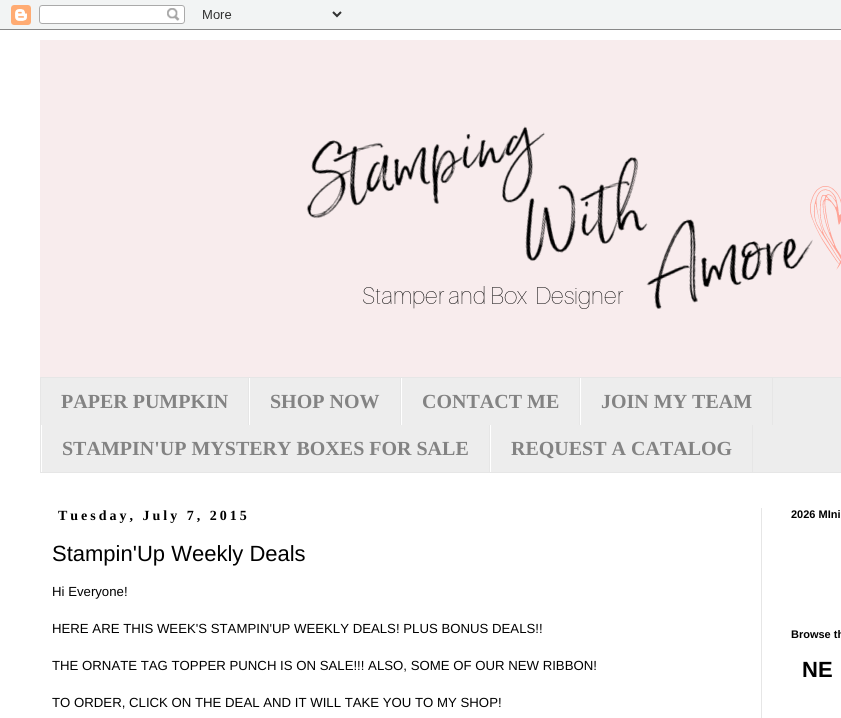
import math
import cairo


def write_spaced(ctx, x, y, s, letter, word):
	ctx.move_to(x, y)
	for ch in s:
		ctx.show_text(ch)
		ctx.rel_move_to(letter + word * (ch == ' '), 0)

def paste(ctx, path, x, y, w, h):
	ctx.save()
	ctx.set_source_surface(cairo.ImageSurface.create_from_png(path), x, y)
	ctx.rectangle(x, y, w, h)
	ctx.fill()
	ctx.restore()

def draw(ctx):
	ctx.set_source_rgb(0.914, 0.929, 0.925)
	ctx.paint()
	paste(ctx, 'media/1.png', 0, 0, 841, 30)
	ctx.set_source_rgb(1, 1, 1)
	ctx.rectangle(0, 30, 841, 688)
	ctx.fill()
	paste(ctx, 'media/2.png', 40, 40, 801, 337)
	ctx.set_source_rgb(0.929, 0.929, 0.929)
	ctx.rectangle(40.5, 377.5, 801, 95)
	ctx.fill_preserve()
	ctx.set_source_rgb(0.902, 0.902, 0.902)
	ctx.set_line_width(1)
	ctx.stroke()
	ctx.rectangle(248, 378, 1, 47)
	ctx.fill()
	ctx.select_font_face('Liberation Serif', cairo.FONT_SLANT_NORMAL, cairo.FONT_WEIGHT_BOLD)
	ctx.set_font_size(20)
	ctx.set_source_rgb(0.514, 0.514, 0.514)
	ctx.move_to(61, 408)
	ctx.show_text('PAPER PUMPKIN')
	ctx.set_source_rgb(0.902, 0.902, 0.902)
	ctx.rectangle(400, 378, 1, 47)
	ctx.fill()
	ctx.set_source_rgb(1, 1, 1)
	ctx.rectangle(249, 378, 1, 47)
	ctx.fill()
	ctx.set_source_rgb(0.514, 0.514, 0.514)
	ctx.move_to(270, 408)
	ctx.show_text('SHOP NOW')
	ctx.set_source_rgb(0.902, 0.902, 0.902)
	ctx.rectangle(579, 378, 1, 47)
	ctx.fill()
	ctx.set_source_rgb(1, 1, 1)
	ctx.rectangle(401, 378, 1, 47)
	ctx.fill()
	ctx.set_source_rgb(0.514, 0.514, 0.514)
	ctx.move_to(422, 408)
	ctx.show_text('CONTACT ME')
	ctx.set_source_rgb(0.902, 0.902, 0.902)
	ctx.rectangle(772, 378, 1, 47)
	ctx.fill()
	ctx.set_source_rgb(1, 1, 1)
	ctx.rectangle(580, 378, 1, 47)
	ctx.fill()
	ctx.set_source_rgb(0.514, 0.514, 0.514)
	ctx.move_to(601, 408)
	ctx.show_text('JOIN MY TEAM')
	ctx.set_source_rgb(0.902, 0.902, 0.902)
	ctx.rectangle(489, 425, 1, 47)
	ctx.fill()
	ctx.set_source_rgb(1, 1, 1)
	ctx.rectangle(41, 425, 1, 47)
	ctx.fill()
	ctx.set_source_rgb(0.514, 0.514, 0.514)
	ctx.move_to(62, 455)
	ctx.show_text('STAMPIN\'UP MYSTERY BOXES FOR SALE')
	ctx.set_source_rgb(0.902, 0.902, 0.902)
	ctx.rectangle(752, 425, 1, 47)
	ctx.fill()
	ctx.set_source_rgb(1, 1, 1)
	ctx.rectangle(490, 425, 1, 47)
	ctx.fill()
	ctx.set_source_rgb(0.514, 0.514, 0.514)
	ctx.move_to(511, 455)
	ctx.show_text('REQUEST A CATALOG')
	ctx.set_source_rgb(0.902, 0.902, 0.902)
	ctx.rectangle(761, 508, 1, 210)
	ctx.fill()
	ctx.set_font_size(14)
	ctx.set_source_rgb(0, 0, 0)
	write_spaced(ctx, 58, 520, 'Tuesday, July 7, 2015', 3, 0)
	ctx.select_font_face('Liberation Sans')
	ctx.set_font_size(22)
	ctx.move_to(52, 561)
	ctx.show_text('Stampin\'Up Weekly Deals')
	ctx.set_font_size(13.2)
	for x, y, s in [
		(52, 596, 'Hi Everyone!'),
		(52, 633, 'HERE ARE THIS WEEK\'S STAMPIN\'UP WEEKLY DEALS! PLUS BONUS DEALS!!'),
		(52, 670, 'THE ORNATE TAG TOPPER PUNCH IS ON SALE!!! ALSO, SOME OF OUR NEW RIBBON!'),
		(52, 707, 'TO ORDER, CLICK ON THE DEAL AND IT WILL TAKE YOU TO MY SHOP!'),
	]:
		ctx.move_to(x, y)
		ctx.show_text(s)
	ctx.select_font_face('Liberation Sans', cairo.FONT_SLANT_NORMAL, cairo.FONT_WEIGHT_BOLD)
	ctx.set_font_size(11)
	ctx.move_to(791, 518)
	ctx.show_text('2026 MIni')
	ctx.move_to(791, 638)
	ctx.show_text('Browse th')
	ctx.set_font_size(22)
	ctx.move_to(802, 677)
	ctx.show_text('NE')


surface = cairo.ImageSurface(cairo.FORMAT_RGB24, 841, 718)
ctx = cairo.Context(surface)
options = cairo.FontOptions()
options.set_hint_metrics(cairo.HINT_METRICS_OFF)
options.set_hint_style(cairo.HINT_STYLE_NONE)
ctx.set_font_options(options)
ctx.set_miter_limit(4)
draw(ctx)
surface.write_to_png('image.png')
